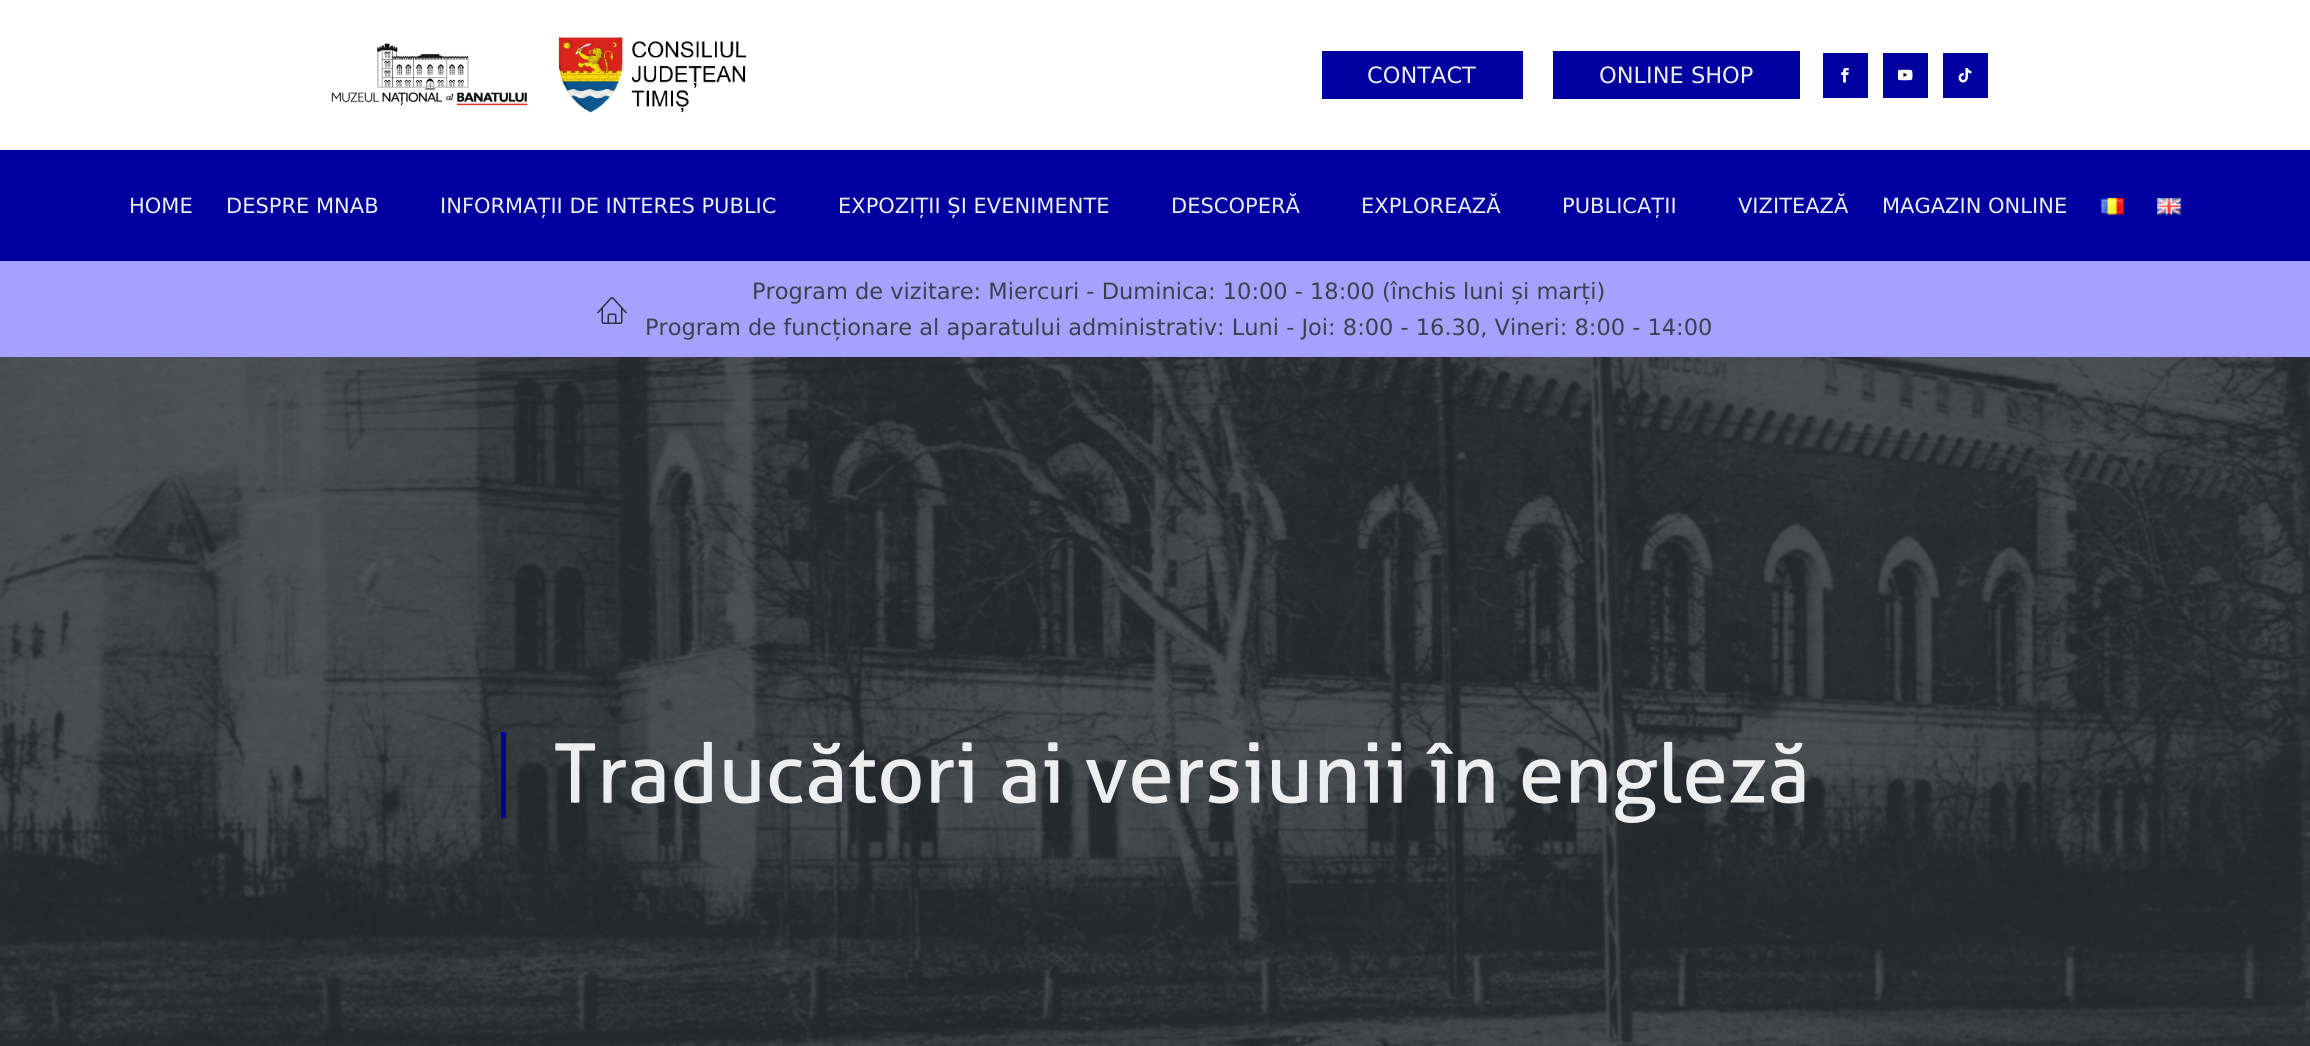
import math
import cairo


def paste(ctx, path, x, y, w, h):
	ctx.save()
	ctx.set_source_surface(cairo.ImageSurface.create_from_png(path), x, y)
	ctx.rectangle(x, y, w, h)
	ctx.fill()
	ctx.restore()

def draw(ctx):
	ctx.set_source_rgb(1, 1, 1)
	ctx.paint()
	paste(ctx, 'media/1.png', 331, 43, 197, 63)
	paste(ctx, 'media/2.png', 558, 37, 189, 76)
	ctx.set_source_rgb(0, 0, 0.627)
	ctx.rectangle(1322, 51, 201, 48)
	ctx.fill()
	ctx.select_font_face('DejaVu Sans')
	ctx.set_font_size(22.5)
	ctx.set_source_rgb(0.933, 0.933, 0.933)
	ctx.move_to(1367, 83)
	ctx.show_text('CONTACT')
	ctx.set_source_rgb(0, 0, 0.627)
	ctx.rectangle(1553, 51, 247, 48)
	ctx.fill()
	ctx.set_source_rgb(0.933, 0.933, 0.933)
	ctx.move_to(1599, 83)
	ctx.show_text('ONLINE SHOP')
	ctx.set_source_rgb(0, 0, 0.627)
	ctx.rectangle(1823, 53, 45, 45)
	ctx.fill()
	paste(ctx, 'media/3.png', 1841, 68, 8, 15)
	ctx.rectangle(1883, 53, 45, 45)
	ctx.fill()
	paste(ctx, 'media/4.png', 1898, 69, 15, 12)
	ctx.rectangle(1943, 53, 45, 45)
	ctx.fill()
	paste(ctx, 'media/5.png', 1958, 68, 14, 15)
	ctx.rectangle(0, 150, 2310, 111)
	ctx.fill()
	ctx.set_font_size(21)
	ctx.set_source_rgb(0.933, 0.933, 0.933)
	for x, y, s in [
		(129, 213, 'HOME'),
		(226, 213, 'DESPRE MNAB'),
		(440, 213, 'INFORMAȚII DE INTERES PUBLIC'),
		(838, 213, 'EXPOZIȚII ȘI EVENIMENTE'),
		(1171, 213, 'DESCOPERĂ'),
		(1361, 213, 'EXPLOREAZĂ'),
		(1562, 213, 'PUBLICAȚII'),
		(1738, 213, 'VIZITEAZĂ'),
		(1882, 213, 'MAGAZIN ONLINE'),
	]:
		ctx.move_to(x, y)
		ctx.show_text(s)
	paste(ctx, 'media/6.png', 2100, 198, 24, 17)
	paste(ctx, 'media/7.png', 2157, 198, 24, 17)
	ctx.set_source_rgb(0.639, 0.639, 1)
	ctx.rectangle(0, 261, 2310, 96)
	ctx.fill()
	paste(ctx, 'media/8.png', 597, 297, 30, 27)
	ctx.set_font_size(22.5)
	ctx.set_source_rgb(0.227, 0.255, 0.302)
	ctx.move_to(752, 299)
	ctx.show_text('Program de vizitare: Miercuri - Duminica: 10:00 - 18:00 (închis luni și marți)')
	ctx.move_to(645, 335)
	ctx.show_text('Program de funcționare al aparatului administrativ: Luni - Joi: 8:00 - 16.30, Vineri: 8:00 - 14:00')
	paste(ctx, 'media/9.png', 0, 357, 2310, 689)
	ctx.set_source_rgb(0, 0, 0.627)
	ctx.rectangle(501, 732, 5, 86)
	ctx.fill()
	paste(ctx, 'media/10.png', 555, 741, 1250, 82)


surface = cairo.ImageSurface(cairo.FORMAT_RGB24, 2310, 1046)
ctx = cairo.Context(surface)
options = cairo.FontOptions()
options.set_hint_metrics(cairo.HINT_METRICS_OFF)
options.set_hint_style(cairo.HINT_STYLE_NONE)
ctx.set_font_options(options)
ctx.set_miter_limit(4)
draw(ctx)
surface.write_to_png('image.png')
